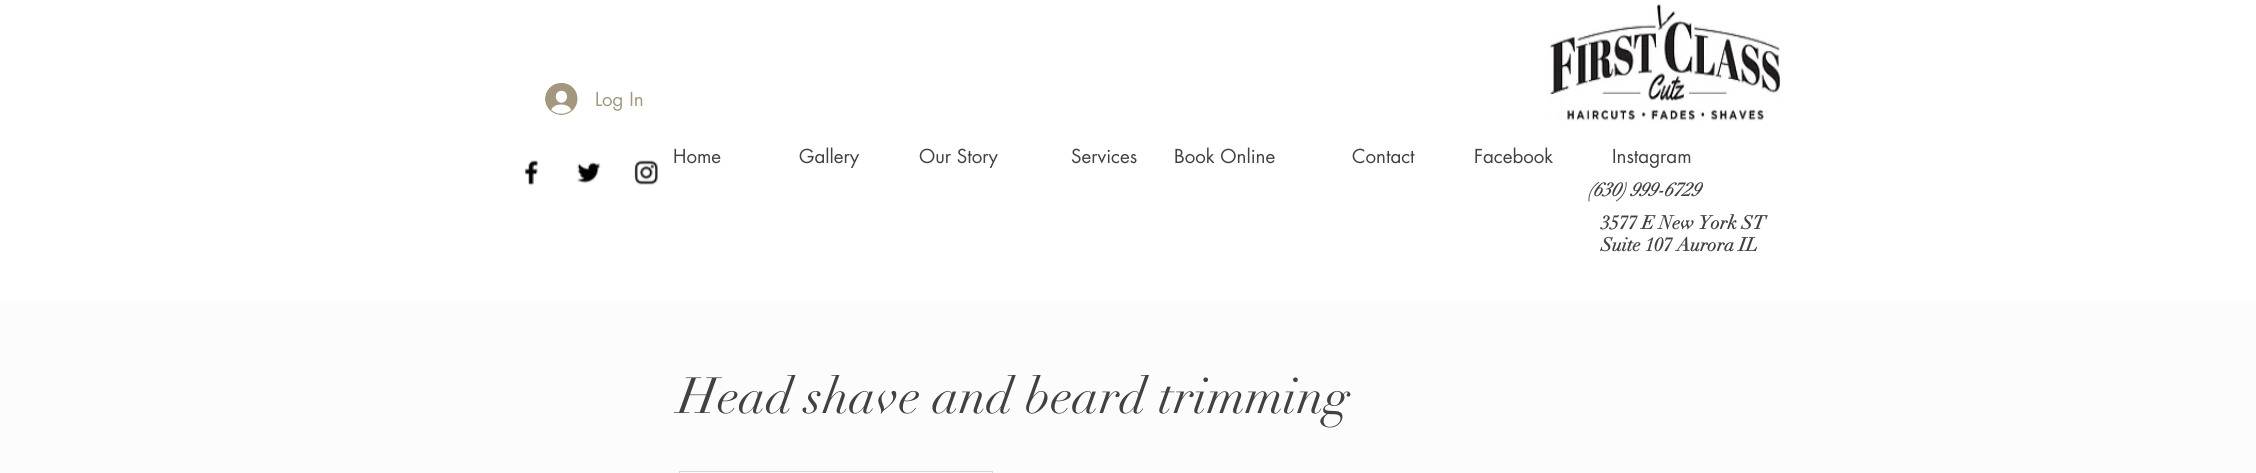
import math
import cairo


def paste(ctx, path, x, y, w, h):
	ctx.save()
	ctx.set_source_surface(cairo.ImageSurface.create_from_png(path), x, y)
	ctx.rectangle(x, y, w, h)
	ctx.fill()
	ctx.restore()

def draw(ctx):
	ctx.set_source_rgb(0.988, 0.988, 0.988)
	ctx.paint()
	ctx.set_source_rgb(1, 1, 1)
	ctx.rectangle(0, 0, 2256, 301)
	ctx.fill()
	paste(ctx, 'media/1.png', 545, 83, 33, 32)
	ctx.select_font_face('futura')
	ctx.set_font_size(18.75)
	ctx.set_source_rgb(0.639, 0.596, 0.498)
	ctx.move_to(595, 106)
	ctx.show_text('Log In')
	paste(ctx, 'media/2.png', 1549, 4, 232, 117)
	ctx.set_source_rgb(0.255, 0.255, 0.255)
	for x, y, s in [
		(673, 163, 'Home'),
		(799, 163, 'Gallery'),
		(919, 163, 'Our Story'),
		(1071, 163, 'Services'),
		(1174, 163, 'Book Online'),
		(1352, 163, 'Contact'),
		(1474, 163, 'Facebook'),
		(1612, 163, 'Instagram'),
	]:
		ctx.move_to(x, y)
		ctx.show_text(s)
	paste(ctx, 'media/3.png', 524, 160, 14, 26)
	paste(ctx, 'media/4.png', 577, 162, 24, 22)
	paste(ctx, 'media/5.png', 634, 160, 24, 25)
	ctx.select_font_face('didot', cairo.FONT_SLANT_ITALIC, cairo.FONT_WEIGHT_BOLD)
	ctx.move_to(1588, 196)
	ctx.show_text('(630) 999-6729')
	ctx.select_font_face('didot', cairo.FONT_SLANT_NORMAL, cairo.FONT_WEIGHT_BOLD)
	ctx.move_to(1601, 229)
	ctx.show_text('3577 E New York ST')
	ctx.move_to(1601, 251)
	ctx.show_text('Suite 107 Aurora IL')
	ctx.select_font_face('didot')
	ctx.set_font_size(50)
	ctx.move_to(678, 413)
	ctx.show_text('Head shave and beard trimming')
	ctx.rectangle(679.5, 471.5, 313, 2)
	ctx.set_source_rgb(0.843, 0.843, 0.843)
	ctx.set_line_width(1)
	ctx.stroke()


surface = cairo.ImageSurface(cairo.FORMAT_RGB24, 2256, 473)
ctx = cairo.Context(surface)
options = cairo.FontOptions()
options.set_hint_metrics(cairo.HINT_METRICS_OFF)
options.set_hint_style(cairo.HINT_STYLE_NONE)
ctx.set_font_options(options)
ctx.set_miter_limit(4)
draw(ctx)
surface.write_to_png('image.png')
